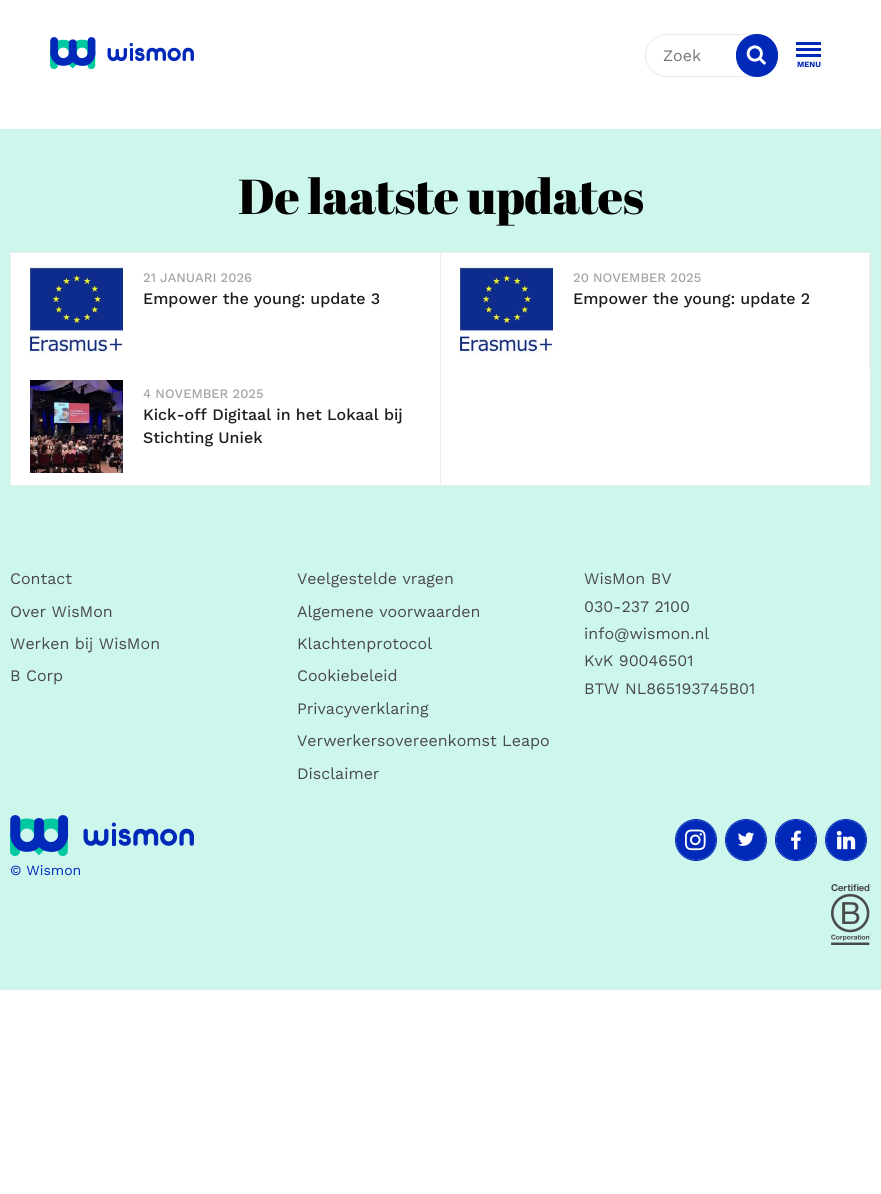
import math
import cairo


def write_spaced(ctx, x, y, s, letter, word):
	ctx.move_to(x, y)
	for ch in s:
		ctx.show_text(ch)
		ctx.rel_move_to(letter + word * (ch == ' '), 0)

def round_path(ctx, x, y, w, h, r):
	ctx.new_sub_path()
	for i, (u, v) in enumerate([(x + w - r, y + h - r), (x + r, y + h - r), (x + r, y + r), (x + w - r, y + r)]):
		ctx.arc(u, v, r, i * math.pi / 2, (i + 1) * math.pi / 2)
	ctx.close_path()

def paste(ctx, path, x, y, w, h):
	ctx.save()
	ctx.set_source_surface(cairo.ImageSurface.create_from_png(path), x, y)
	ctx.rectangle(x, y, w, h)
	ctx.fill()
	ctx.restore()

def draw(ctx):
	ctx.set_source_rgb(1, 1, 1)
	ctx.paint()
	paste(ctx, 'media/1.png', 50, 37, 144, 32)
	round_path(ctx, 645.5, 34.5, 132, 42, 21)
	ctx.set_source_rgb(0.918, 0.918, 0.918)
	ctx.set_line_width(1)
	ctx.stroke()
	ctx.select_font_face('Work Sans')
	ctx.set_font_size(16)
	ctx.set_source_rgb(0.459, 0.459, 0.459)
	ctx.move_to(663, 61)
	ctx.show_text('Zoek')
	ctx.set_source_rgb(0, 0.157, 0.725)
	round_path(ctx, 736.5, 34.5, 41, 42, 20.5)
	ctx.fill_preserve()
	ctx.stroke()
	paste(ctx, 'media/2.png', 746, 45, 20, 20)
	ctx.rectangle(796, 42, 25, 3)
	ctx.rectangle(796, 48, 25, 3)
	ctx.rectangle(796, 54, 25, 3)
	ctx.fill()
	ctx.select_font_face('Work Sans', cairo.FONT_SLANT_NORMAL, cairo.FONT_WEIGHT_BOLD)
	ctx.set_font_size(8)
	ctx.move_to(797, 67)
	ctx.show_text('MENU')
	ctx.set_source_rgb(0.804, 0.961, 0.929)
	ctx.rectangle(0, 129, 881, 861)
	ctx.fill()
	ctx.select_font_face('Abril Fatface')
	ctx.set_font_size(49)
	ctx.set_source_rgb(0, 0, 0)
	write_spaced(ctx, 238, 214, 'De laatste updates', -0.5, 0)
	ctx.set_source_rgb(1, 1, 1)
	ctx.rectangle(10.5, 252.5, 860, 233)
	ctx.fill_preserve()
	ctx.set_source_rgb(0.918, 0.918, 0.918)
	ctx.stroke()
	ctx.rectangle(440, 253, 1, 232)
	ctx.fill()
	paste(ctx, 'media/3.png', 30, 265, 93, 89)
	ctx.select_font_face('Work Sans Medium')
	ctx.set_font_size(13)
	ctx.set_source_rgb(0.647, 0.647, 0.647)
	ctx.move_to(143, 282)
	ctx.show_text('21 JANUARI 2026')
	ctx.set_font_size(16)
	ctx.set_source_rgb(0.114, 0.114, 0.106)
	ctx.move_to(143, 304)
	ctx.show_text('Empower the young: update 3')
	ctx.set_source_rgb(0.918, 0.918, 0.918)
	ctx.rectangle(869, 253, 1, 116)
	ctx.fill()
	paste(ctx, 'media/3.png', 460, 265, 93, 89)
	ctx.set_font_size(13)
	ctx.set_source_rgb(0.647, 0.647, 0.647)
	ctx.move_to(573, 282)
	ctx.show_text('20 NOVEMBER 2025')
	ctx.set_font_size(16)
	ctx.set_source_rgb(0.114, 0.114, 0.106)
	ctx.move_to(573, 304)
	ctx.show_text('Empower the young: update 2')
	paste(ctx, 'media/4.png', 30, 380, 93, 93)
	ctx.set_font_size(13)
	ctx.set_source_rgb(0.647, 0.647, 0.647)
	ctx.move_to(143, 398)
	ctx.show_text('4 NOVEMBER 2025')
	ctx.set_font_size(16)
	ctx.set_source_rgb(0.114, 0.114, 0.106)
	ctx.move_to(143, 420)
	ctx.show_text('Kick-off Digitaal in het Lokaal bij')
	ctx.move_to(143, 443)
	ctx.show_text('Stichting Uniek')
	ctx.select_font_face('Work Sans')
	ctx.set_source_rgb(0.286, 0.286, 0.286)
	for x, y, s in [
		(10, 584, 'Contact'),
		(10, 617, 'Over WisMon'),
		(10, 649, 'Werken bij WisMon'),
		(10, 681, 'B Corp'),
		(297, 584, 'Veelgestelde vragen'),
		(297, 617, 'Algemene voorwaarden'),
		(297, 649, 'Klachtenprotocol'),
		(297, 681, 'Cookiebeleid'),
		(297, 714, 'Privacyverklaring'),
		(297, 746, 'Verwerkersovereenkomst Leapo'),
		(297, 779, 'Disclaimer'),
		(584, 584, 'WisMon BV'),
		(584, 612, '030-237 2100'),
		(584, 639, 'info@wismon.nl'),
		(584, 666, 'KvK 90046501'),
		(584, 694, 'BTW NL865193745B01'),
	]:
		ctx.move_to(x, y)
		ctx.show_text(s)
	paste(ctx, 'media/5.png', 10, 815, 184, 41)
	ctx.set_font_size(14)
	ctx.set_source_rgb(0, 0.157, 0.725)
	ctx.move_to(10, 875)
	ctx.show_text('© Wismon')
	ctx.new_path()
	ctx.arc(696, 840, 20.5, 0, 2 * math.pi)
	ctx.stroke()
	ctx.arc(696, 840, 20, 0, 2 * math.pi)
	ctx.fill()
	paste(ctx, 'media/6.png', 685, 829, 21, 22)
	ctx.arc(746, 840, 20.5, 0, 2 * math.pi)
	ctx.stroke()
	ctx.arc(746, 840, 20, 0, 2 * math.pi)
	ctx.fill()
	paste(ctx, 'media/7.png', 738, 832, 17, 14)
	ctx.arc(796, 840, 20.5, 0, 2 * math.pi)
	ctx.stroke()
	ctx.arc(796, 840, 20, 0, 2 * math.pi)
	ctx.fill()
	paste(ctx, 'media/8.png', 791, 830, 10, 20)
	ctx.arc(846, 840, 20.5, 0, 2 * math.pi)
	ctx.stroke()
	ctx.arc(846, 840, 20, 0, 2 * math.pi)
	ctx.fill()
	paste(ctx, 'media/9.png', 836, 830, 20, 20)
	paste(ctx, 'media/10.png', 831, 884, 40, 61)


surface = cairo.ImageSurface(cairo.FORMAT_RGB24, 881, 1194)
ctx = cairo.Context(surface)
options = cairo.FontOptions()
options.set_hint_metrics(cairo.HINT_METRICS_OFF)
options.set_hint_style(cairo.HINT_STYLE_NONE)
ctx.set_font_options(options)
ctx.set_miter_limit(4)
draw(ctx)
surface.write_to_png('image.png')
